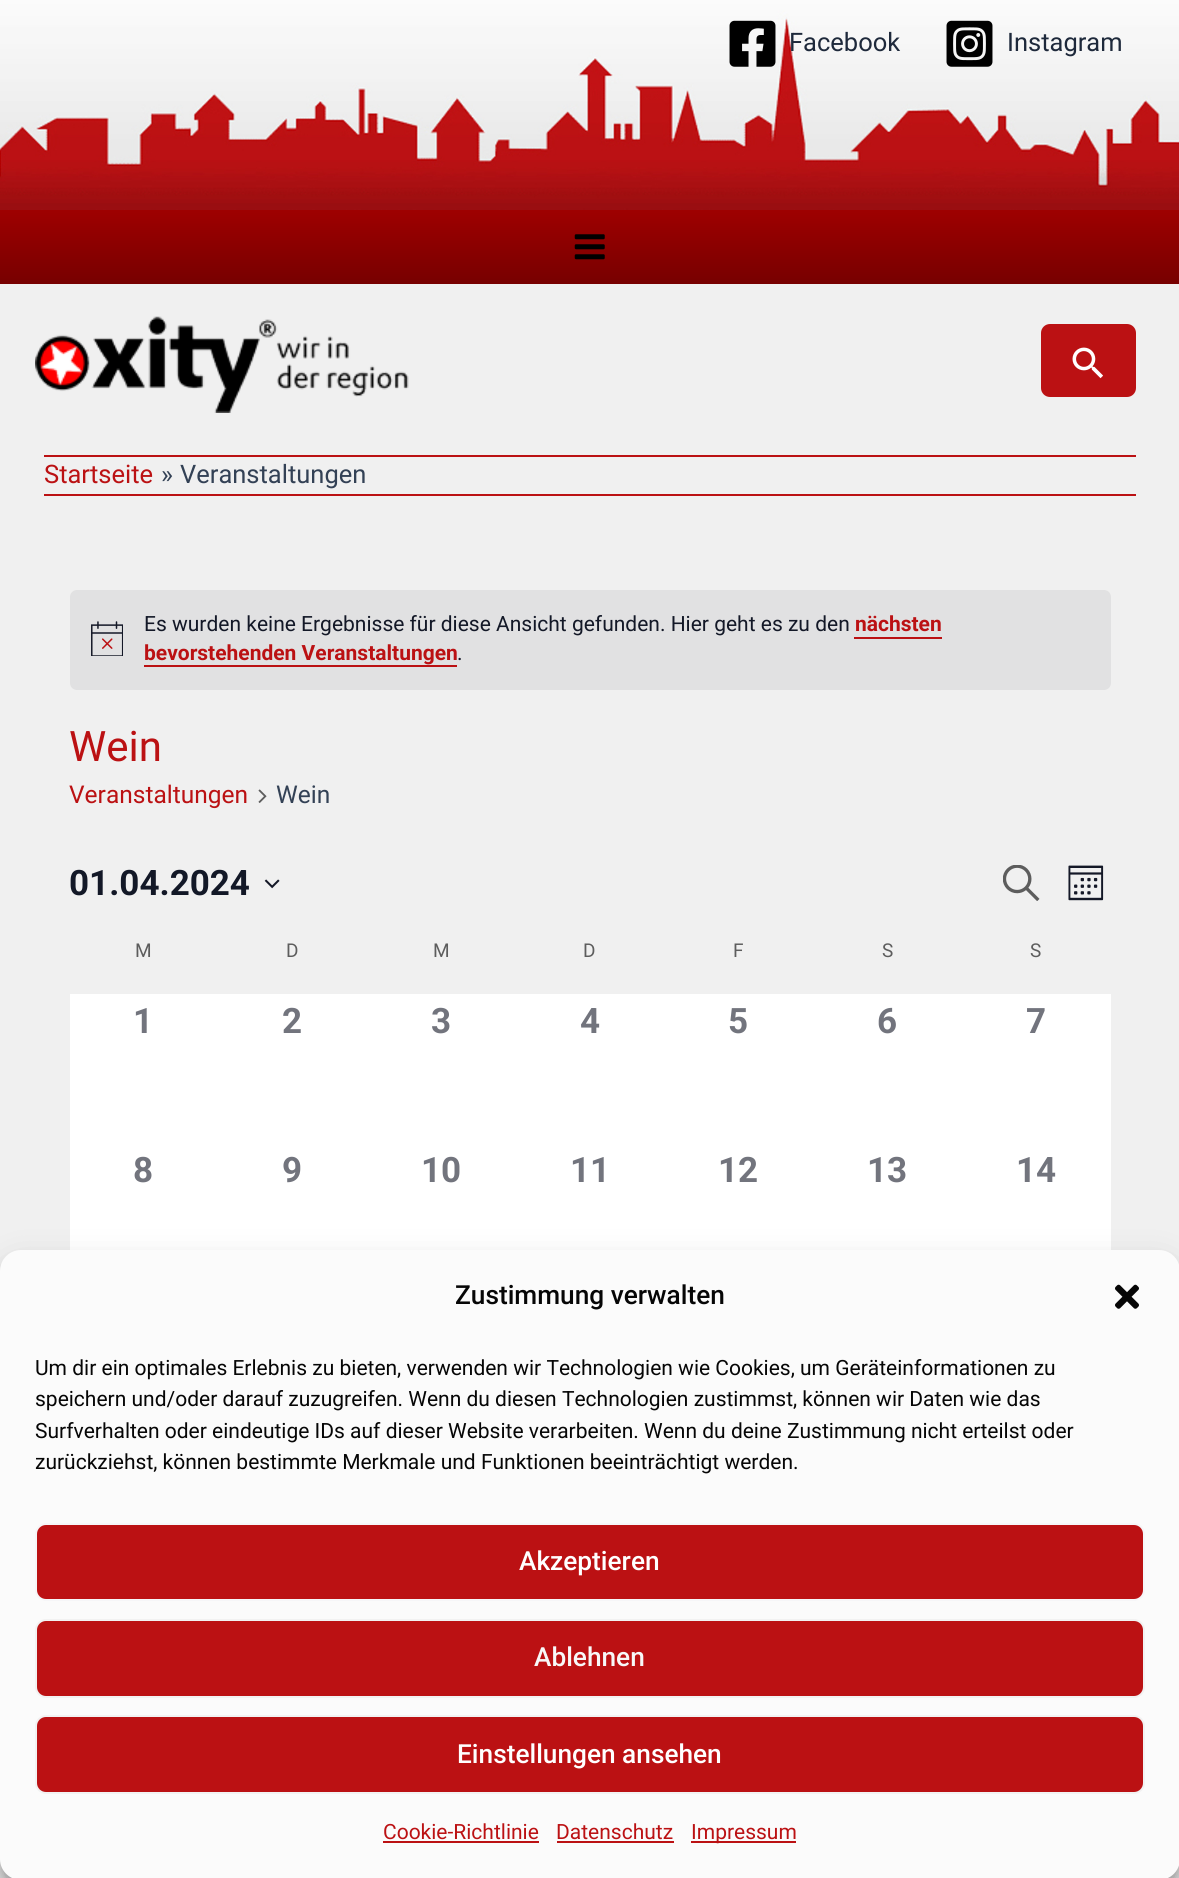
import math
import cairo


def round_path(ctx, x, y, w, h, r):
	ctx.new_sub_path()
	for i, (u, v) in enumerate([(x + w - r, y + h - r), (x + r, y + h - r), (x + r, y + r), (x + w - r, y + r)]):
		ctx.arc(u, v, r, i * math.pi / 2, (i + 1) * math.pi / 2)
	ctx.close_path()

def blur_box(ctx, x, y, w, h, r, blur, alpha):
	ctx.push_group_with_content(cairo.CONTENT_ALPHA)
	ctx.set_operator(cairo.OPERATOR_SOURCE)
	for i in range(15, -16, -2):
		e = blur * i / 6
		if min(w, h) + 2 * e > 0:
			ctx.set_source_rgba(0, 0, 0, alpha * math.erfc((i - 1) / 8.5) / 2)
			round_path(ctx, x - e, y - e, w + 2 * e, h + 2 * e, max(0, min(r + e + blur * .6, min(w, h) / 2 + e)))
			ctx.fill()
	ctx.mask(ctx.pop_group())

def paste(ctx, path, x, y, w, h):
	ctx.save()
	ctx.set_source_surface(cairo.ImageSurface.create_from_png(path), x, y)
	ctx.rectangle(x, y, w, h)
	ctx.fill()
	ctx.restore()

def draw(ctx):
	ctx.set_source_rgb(0.941, 0.941, 0.941)
	ctx.paint()
	paste(ctx, 'media/1.png', 0, 0, 1179, 210)
	paste(ctx, 'media/2.png', 729, 20, 47, 47)
	ctx.select_font_face('Roboto')
	ctx.set_font_size(25.5)
	ctx.set_source_rgb(0.118, 0.161, 0.231)
	ctx.move_to(789, 51)
	ctx.show_text('Facebook')
	paste(ctx, 'media/3.png', 946, 20, 47, 47)
	ctx.move_to(1007, 51)
	ctx.show_text('Instagram')
	gradient = cairo.LinearGradient(590, 210, 590, 284)
	gradient.add_color_stop_rgba(0, 0.62, 0, 0, 1)
	gradient.add_color_stop_rgba(1, 0.467, 0, 0, 1)
	ctx.set_source(gradient)
	ctx.rectangle(0, 210, 1179, 74)
	ctx.fill()
	paste(ctx, 'media/4.png', 574, 234, 31, 26)
	paste(ctx, 'media/5.png', 35, 316, 374, 97)
	ctx.set_source_rgb(0.733, 0.067, 0.078)
	round_path(ctx, 1041, 324, 95, 73, 9)
	ctx.fill()
	paste(ctx, 'media/6.png', 1072, 347, 31, 32)
	ctx.rectangle(44, 455, 1092, 2)
	ctx.fill()
	ctx.rectangle(44, 494, 1092, 2)
	ctx.fill()
	ctx.move_to(44, 483)
	ctx.show_text('Startseite')
	ctx.set_source_rgb(0.2, 0.255, 0.333)
	ctx.move_to(161, 483)
	ctx.show_text('»')
	ctx.move_to(180, 483)
	ctx.show_text('Veranstaltungen')
	ctx.set_source_rgb(0.882, 0.882, 0.886)
	round_path(ctx, 70, 590, 1041, 100, 7)
	ctx.fill()
	paste(ctx, 'media/7.png', 91, 621, 32, 35)
	ctx.set_font_size(21)
	ctx.set_source_rgb(0.078, 0.094, 0.153)
	ctx.move_to(144, 631)
	ctx.show_text('Es wurden keine Ergebnisse für diese Ansicht gefunden. Hier geht es zu den')
	ctx.select_font_face('Roboto', cairo.FONT_SLANT_NORMAL, cairo.FONT_WEIGHT_BOLD)
	ctx.set_source_rgb(0.733, 0.067, 0.078)
	ctx.move_to(855, 631)
	ctx.show_text('nächsten')
	ctx.rectangle(854, 637, 88, 2)
	ctx.fill()
	ctx.move_to(144, 660)
	ctx.show_text('bevorstehenden Veranstaltungen')
	ctx.rectangle(144, 665, 313, 2)
	ctx.fill()
	ctx.select_font_face('Roboto')
	ctx.set_source_rgb(0.078, 0.094, 0.153)
	ctx.move_to(457, 660)
	ctx.show_text('.')
	ctx.set_font_size(42)
	ctx.set_source_rgb(0.733, 0.067, 0.078)
	ctx.move_to(69, 761)
	ctx.show_text('Wein')
	ctx.set_font_size(24.5)
	ctx.move_to(69, 803)
	ctx.show_text('Veranstaltungen')
	paste(ctx, 'media/8.png', 258, 789, 9, 14)
	ctx.set_source_rgb(0.2, 0.255, 0.333)
	ctx.move_to(276, 803)
	ctx.show_text('Wein')
	ctx.select_font_face('Roboto', cairo.FONT_SLANT_NORMAL, cairo.FONT_WEIGHT_BOLD)
	ctx.set_font_size(35)
	ctx.set_source_rgb(0.078, 0.094, 0.153)
	ctx.move_to(69, 895)
	ctx.show_text('01.04.2024')
	paste(ctx, 'media/9.png', 264, 879, 16, 10)
	paste(ctx, 'media/10.png', 1003, 865, 37, 36)
	paste(ctx, 'media/11.png', 1068, 865, 36, 36)
	ctx.select_font_face('Roboto')
	ctx.set_font_size(19)
	ctx.set_source_rgb(0.365, 0.365, 0.365)
	for x, y, s in [
		(135, 957, 'M'),
		(286, 957, 'D'),
		(433, 957, 'M'),
		(583, 957, 'D'),
		(733, 957, 'F'),
		(882, 957, 'S'),
		(1030, 957, 'S'),
	]:
		ctx.move_to(x, y)
		ctx.show_text(s)
	ctx.set_source_rgb(1, 1, 1)
	ctx.rectangle(70, 994, 1041, 256)
	ctx.fill()
	ctx.select_font_face('Roboto', cairo.FONT_SLANT_NORMAL, cairo.FONT_WEIGHT_BOLD)
	ctx.set_font_size(35)
	ctx.set_source_rgb(0.447, 0.455, 0.49)
	for x, y, s in [
		(133, 1033, '1'),
		(282, 1033, '2'),
		(431, 1033, '3'),
		(580, 1033, '4'),
		(728, 1033, '5'),
		(877, 1033, '6'),
		(1026, 1033, '7'),
		(133, 1182, '8'),
		(282, 1182, '9'),
		(421, 1182, '10'),
		(570, 1182, '11'),
		(718, 1182, '12'),
		(867, 1182, '13'),
		(1016, 1182, '14'),
	]:
		ctx.move_to(x, y)
		ctx.show_text(s)
	ctx.set_source_rgb(0, 0, 0)
	blur_box(ctx, 0, 1260, 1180, 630, 21, 5, 0.23)
	blur_box(ctx, 0, 1267, 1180, 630, 21, 17.5, 0.19)
	ctx.set_source_rgb(0.984, 0.984, 0.984)
	round_path(ctx, 0, 1250, 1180, 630, 21)
	ctx.fill()
	ctx.select_font_face('Roboto Medium')
	ctx.set_font_size(26.25)
	ctx.set_source_rgb(0.024, 0.024, 0.024)
	ctx.move_to(455, 1304)
	ctx.show_text('Zustimmung verwalten')
	paste(ctx, 'media/12.png', 1115, 1284, 24, 25)
	ctx.select_font_face('Roboto')
	ctx.set_font_size(21)
	for x, y, s in [
		(35, 1375, 'Um dir ein optimales Erlebnis zu bieten, verwenden wir Technologien wie Cookies, um Geräteinformationen zu'),
		(35, 1406, 'speichern und/oder darauf zuzugreifen. Wenn du diesen Technologien zustimmst, können wir Daten wie das'),
		(35, 1438, 'Surfverhalten oder eindeutige IDs auf dieser Website verarbeiten. Wenn du deine Zustimmung nicht erteilst oder'),
		(35, 1469, 'zurückziehst, können bestimmte Merkmale und Funktionen beeinträchtigt werden.'),
	]:
		ctx.move_to(x, y)
		ctx.show_text(s)
	ctx.set_source_rgb(0.733, 0.067, 0.078)
	round_path(ctx, 36, 1524, 1108, 76, 10)
	ctx.fill_preserve()
	ctx.set_source_rgb(0.961, 0.961, 0.969)
	ctx.stroke()
	ctx.select_font_face('Roboto Medium')
	ctx.set_font_size(26.25)
	ctx.set_source_rgb(1, 1, 1)
	ctx.move_to(519, 1570)
	ctx.show_text('Akzeptieren')
	ctx.set_source_rgb(0.733, 0.067, 0.078)
	round_path(ctx, 36, 1620, 1108, 77, 10)
	ctx.fill_preserve()
	ctx.set_source_rgb(0.949, 0.949, 0.949)
	ctx.stroke()
	ctx.set_source_rgb(0.969, 0.969, 0.969)
	ctx.move_to(534, 1666)
	ctx.show_text('Ablehnen')
	ctx.set_source_rgb(0.733, 0.067, 0.078)
	round_path(ctx, 36, 1716, 1108, 77, 10)
	ctx.fill_preserve()
	ctx.set_source_rgb(0.949, 0.949, 0.949)
	ctx.stroke()
	ctx.set_source_rgb(1, 1, 1)
	ctx.move_to(457, 1763)
	ctx.show_text('Einstellungen ansehen')
	ctx.select_font_face('Roboto')
	ctx.set_font_size(21)
	ctx.set_source_rgb(0.733, 0.067, 0.078)
	ctx.move_to(383, 1839)
	ctx.show_text('Cookie-Richtlinie')
	ctx.rectangle(383, 1841, 156, 2)
	ctx.fill()
	ctx.move_to(556, 1839)
	ctx.show_text('Datenschutz')
	ctx.rectangle(557, 1841, 117, 2)
	ctx.fill()
	ctx.rectangle(691, 1841, 105, 2)
	ctx.fill()
	ctx.move_to(691, 1839)
	ctx.show_text('Impressum')


surface = cairo.ImageSurface(cairo.FORMAT_RGB24, 1179, 1878)
ctx = cairo.Context(surface)
options = cairo.FontOptions()
options.set_hint_metrics(cairo.HINT_METRICS_OFF)
options.set_hint_style(cairo.HINT_STYLE_NONE)
ctx.set_font_options(options)
ctx.set_miter_limit(4)
draw(ctx)
surface.write_to_png('image.png')
